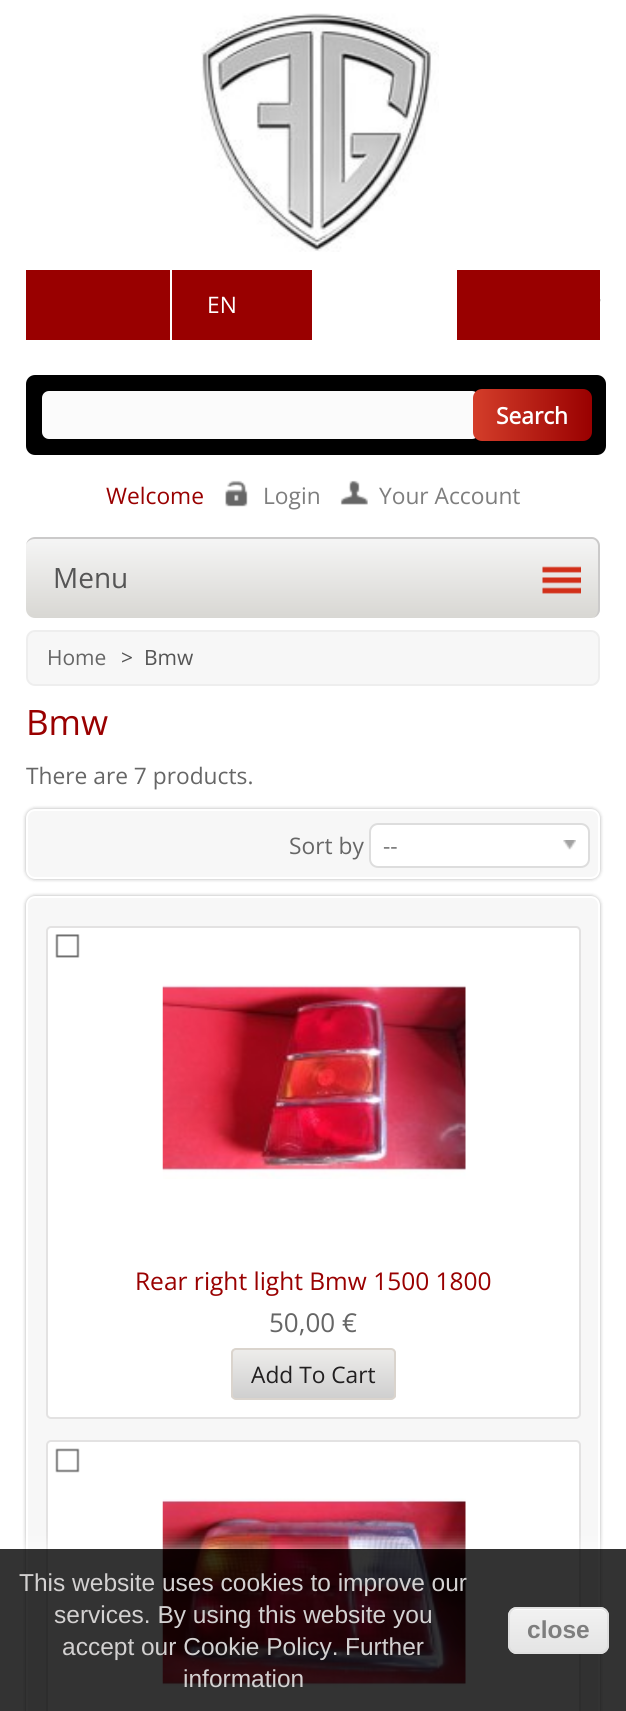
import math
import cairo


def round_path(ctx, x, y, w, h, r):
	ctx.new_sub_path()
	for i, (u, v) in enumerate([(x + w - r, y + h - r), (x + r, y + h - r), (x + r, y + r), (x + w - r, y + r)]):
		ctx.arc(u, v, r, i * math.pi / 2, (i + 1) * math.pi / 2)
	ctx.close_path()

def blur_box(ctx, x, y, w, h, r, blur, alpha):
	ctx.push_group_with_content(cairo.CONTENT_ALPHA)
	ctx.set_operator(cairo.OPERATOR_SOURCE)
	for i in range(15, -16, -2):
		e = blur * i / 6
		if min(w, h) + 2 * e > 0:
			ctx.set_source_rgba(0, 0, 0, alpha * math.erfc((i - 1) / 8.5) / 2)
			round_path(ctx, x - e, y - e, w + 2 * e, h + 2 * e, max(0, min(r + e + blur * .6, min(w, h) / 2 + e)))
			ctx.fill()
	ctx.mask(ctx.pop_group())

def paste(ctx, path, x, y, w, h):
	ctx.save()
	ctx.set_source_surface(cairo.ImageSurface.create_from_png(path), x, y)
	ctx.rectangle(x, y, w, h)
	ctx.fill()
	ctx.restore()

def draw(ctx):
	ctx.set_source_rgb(1, 1, 1)
	ctx.paint()
	paste(ctx, 'media/1.png', 201, 13, 238, 239)
	ctx.set_source_rgb(0.6, 0, 0)
	ctx.rectangle(26, 270, 144, 70)
	ctx.fill()
	ctx.rectangle(172, 270, 140, 70)
	ctx.fill()
	ctx.select_font_face('Open Sans')
	ctx.set_font_size(22.75)
	ctx.set_source_rgb(1, 1, 1)
	ctx.move_to(207, 313)
	ctx.show_text('EN')
	ctx.set_source_rgb(0, 0, 0)
	round_path(ctx, 26, 375, 580, 80, 9)
	ctx.fill()
	ctx.set_source_rgb(0.984, 0.984, 0.984)
	round_path(ctx, 41, 390, 439, 50, 8)
	ctx.fill_preserve()
	ctx.set_source_rgb(0, 0, 0)
	ctx.stroke()
	gradient = cairo.LinearGradient(473, 415, 592, 415)
	gradient.add_color_stop_rgba(0, 0.831, 0.243, 0.165, 1)
	gradient.add_color_stop_rgba(1, 0.6, 0, 0, 1)
	ctx.set_source(gradient)
	round_path(ctx, 473, 389, 119, 52, 9)
	ctx.fill()
	ctx.select_font_face('Open Sans', cairo.FONT_SLANT_NORMAL, cairo.FONT_WEIGHT_BOLD)
	ctx.set_source_rgb(1, 1, 1)
	ctx.move_to(496, 424)
	ctx.show_text('Search')
	paste(ctx, 'media/2.png', 600, 299, 1, 3)
	ctx.set_source_rgb(0.6, 0, 0)
	ctx.rectangle(457, 270, 143, 70)
	ctx.fill()
	ctx.select_font_face('Open Sans')
	ctx.move_to(106, 504)
	ctx.show_text('Welcome')
	paste(ctx, 'media/3.png', 225, 480, 23, 27)
	ctx.set_source_rgb(0.494, 0.494, 0.494)
	ctx.move_to(263, 504)
	ctx.show_text('Login')
	paste(ctx, 'media/4.png', 340, 480, 28, 25)
	ctx.move_to(379, 504)
	ctx.show_text('Your Account')
	ctx.save()
	round_path(ctx, 26, 537, 574, 81, 9)
	ctx.clip()
	gradient = cairo.LinearGradient(312, 539, 312, 618)
	gradient.add_color_stop_rgba(0, 0.961, 0.961, 0.961, 1)
	gradient.add_color_stop_rgba(1, 0.847, 0.843, 0.827, 1)
	ctx.set_source(gradient)
	ctx.new_path()
	ctx.move_to(26, 539)
	ctx.line_to(600, 539)
	ctx.line_to(600, 609)
	ctx.curve_to(600, 614, 596, 618, 591, 618)
	ctx.line_to(35, 618)
	ctx.curve_to(30, 618, 26, 614, 26, 609)
	ctx.close_path()
	ctx.fill()
	ctx.restore()
	ctx.set_source_rgb(0.796, 0.792, 0.792)
	ctx.set_fill_rule(cairo.FILL_RULE_EVEN_ODD)
	ctx.new_path()
	ctx.move_to(35, 537)
	ctx.line_to(592, 537)
	ctx.curve_to(596, 537, 600, 541, 600, 546)
	ctx.line_to(600, 609)
	ctx.curve_to(600, 614, 596, 618, 592, 618)
	ctx.line_to(35, 618)
	ctx.curve_to(30, 618, 26, 614, 26, 609)
	ctx.line_to(26, 546)
	ctx.curve_to(26, 541, 30, 537, 35, 537)
	ctx.close_path()
	ctx.move_to(35, 539)
	ctx.line_to(592, 539)
	ctx.curve_to(595, 539, 598, 542, 598, 546)
	ctx.line_to(598, 609)
	ctx.curve_to(598, 614, 595, 618, 592, 618)
	ctx.line_to(35, 618)
	ctx.curve_to(30, 618, 26, 614, 26, 609)
	ctx.line_to(26, 546)
	ctx.curve_to(26, 542, 30, 539, 35, 539)
	ctx.close_path()
	ctx.fill()
	ctx.set_font_size(28)
	ctx.set_source_rgb(0.333, 0.333, 0.333)
	ctx.move_to(53, 588)
	ctx.show_text('Menu')
	paste(ctx, 'media/5.png', 542, 566, 39, 28)
	ctx.set_source_rgb(0.965, 0.965, 0.965)
	round_path(ctx, 27, 631, 572, 54, 8)
	ctx.fill_preserve()
	ctx.set_source_rgb(0.933, 0.933, 0.933)
	ctx.stroke()
	ctx.set_font_size(21)
	ctx.set_source_rgb(0.4, 0.4, 0.4)
	ctx.move_to(47, 665)
	ctx.show_text('Home')
	ctx.set_source_rgb(0.333, 0.333, 0.333)
	ctx.move_to(121, 665)
	ctx.show_text('>')
	ctx.move_to(144, 665)
	ctx.show_text('Bmw')
	ctx.set_font_size(35)
	ctx.set_source_rgb(0.6, 0, 0)
	ctx.move_to(26, 735)
	ctx.show_text('Bmw')
	ctx.set_font_size(22.75)
	ctx.set_source_rgb(0.4, 0.4, 0.4)
	ctx.move_to(26, 784)
	ctx.show_text('There are 7 products.')
	ctx.set_source_rgb(0, 0, 0)
	blur_box(ctx, 26, 809, 574, 70, 9, 2, 0.32)
	ctx.set_source_rgb(0.965, 0.965, 0.965)
	round_path(ctx, 27, 810, 572, 68, 8)
	ctx.fill_preserve()
	ctx.set_source_rgb(1, 1, 1)
	ctx.stroke()
	ctx.set_source_rgb(0.4, 0.4, 0.4)
	ctx.move_to(289, 854)
	ctx.show_text('Sort by')
	ctx.set_source_rgb(1, 1, 1)
	round_path(ctx, 370, 824, 219, 43, 8)
	ctx.fill_preserve()
	ctx.set_source_rgb(0.867, 0.867, 0.867)
	ctx.stroke()
	paste(ctx, 'media/6.png', 563, 840, 13, 10)
	ctx.set_source_rgb(0.467, 0.467, 0.467)
	ctx.move_to(383, 854)
	ctx.show_text('--')
	ctx.set_source_rgb(0, 0, 0)
	blur_box(ctx, 26, 896, 574, 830, 9, 2, 0.32)
	ctx.set_source_rgb(0.965, 0.965, 0.965)
	round_path(ctx, 27, 897, 572, 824, 8)
	ctx.fill_preserve()
	ctx.set_source_rgb(1, 1, 1)
	ctx.stroke()
	round_path(ctx, 47, 927, 533, 491, 4)
	ctx.fill_preserve()
	ctx.set_source_rgb(0.89, 0.886, 0.886)
	ctx.stroke()
	paste(ctx, 'media/7.png', 55, 934, 25, 24)
	paste(ctx, 'media/8.png', 162, 984, 304, 195)
	ctx.set_font_size(24.5)
	ctx.set_source_rgb(0.6, 0, 0)
	ctx.move_to(135, 1290)
	ctx.show_text('Rear right light Bmw 1500 1800')
	ctx.set_font_size(26)
	ctx.set_source_rgb(0.4, 0.4, 0.4)
	ctx.move_to(269, 1332)
	ctx.show_text('50,00 €')
	ctx.save()
	ctx.set_fill_rule(cairo.FILL_RULE_WINDING)
	round_path(ctx, 231, 1348, 165, 52, 5)
	ctx.clip()
	gradient = cairo.LinearGradient(313, 1349, 313, 1398)
	gradient.add_color_stop_rgba(0, 0.933, 0.929, 0.922, 1)
	gradient.add_color_stop_rgba(1, 0.812, 0.812, 0.812, 1)
	ctx.set_source(gradient)
	ctx.rectangle(231, 1349, 165, 49)
	ctx.fill()
	ctx.restore()
	round_path(ctx, 232, 1349, 163, 50, 4)
	ctx.set_source_rgb(0.855, 0.831, 0.804)
	ctx.stroke()
	ctx.set_font_size(22.75)
	ctx.set_source_rgb(0.129, 0.122, 0.125)
	ctx.move_to(251, 1383)
	ctx.show_text('Add To Cart')
	ctx.set_source_rgb(1, 1, 1)
	round_path(ctx, 47, 1441, 533, 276, 4)
	ctx.fill_preserve()
	ctx.set_source_rgb(0.89, 0.886, 0.886)
	ctx.stroke()
	paste(ctx, 'media/9.png', 55, 1448, 25, 25)
	paste(ctx, 'media/10.png', 162, 1498, 304, 192)
	ctx.save()
	ctx.set_fill_rule(cairo.FILL_RULE_WINDING)
	ctx.rectangle(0, 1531, 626, 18)
	ctx.clip()
	ctx.set_source_rgb(1, 1, 1)
	blur_box(ctx, 0, 1549, 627, 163, 0, 9, 0.8)
	ctx.restore()
	ctx.set_source_rgba(0, 0, 0, 0.8)
	ctx.rectangle(0, 1549, 626, 162)
	ctx.fill()
	ctx.select_font_face('Liberation Sans')
	ctx.set_font_size(24.5)
	ctx.set_source_rgb(0.827, 0.82, 0.82)
	for x, y, s in [
		(19, 1591, 'This website uses cookies to improve our'),
		(54, 1623, 'services. By using this website you'),
		(62, 1655, 'accept our Cookie Policy.'),
		(345, 1655, 'Further'),
		(183, 1687, 'information'),
	]:
		ctx.move_to(x, y)
		ctx.show_text(s)
	ctx.set_source_rgba(0.976, 0.976, 0.976, 0.8)
	round_path(ctx, 508, 1607, 101, 47, 9)
	ctx.fill()
	ctx.save()
	ctx.set_fill_rule(cairo.FILL_RULE_WINDING)
	round_path(ctx, 508, 1607, 101, 47, 9)
	ctx.clip()
	gradient = cairo.LinearGradient(509, 1565, 509, 1608)
	gradient.add_color_stop_rgba(0.05, 0.976, 0.976, 0.976, 0.8)
	gradient.add_color_stop_rgba(1, 0.914, 0.914, 0.914, 0.8)
	ctx.set_source(gradient)
	ctx.rectangle(508, 1607, 101, 1)
	ctx.fill()
	gradient = cairo.LinearGradient(509, 1608, 509, 1652)
	gradient.add_color_stop_rgba(0.05, 0.976, 0.976, 0.976, 0.8)
	gradient.add_color_stop_rgba(1, 0.914, 0.914, 0.914, 0.8)
	ctx.set_source(gradient)
	ctx.rectangle(508, 1608, 101, 44)
	ctx.fill()
	gradient = cairo.LinearGradient(509, 1652, 509, 1696)
	gradient.add_color_stop_rgba(0.05, 0.976, 0.976, 0.976, 0.8)
	gradient.add_color_stop_rgba(1, 0.914, 0.914, 0.914, 0.8)
	ctx.set_source(gradient)
	ctx.rectangle(508, 1652, 101, 2)
	ctx.fill()
	ctx.restore()
	ctx.set_source_rgb(0.988, 0.988, 0.988)
	ctx.set_fill_rule(cairo.FILL_RULE_WINDING)
	ctx.new_path()
	ctx.move_to(516, 1610)
	ctx.line_to(600, 1610)
	ctx.curve_to(604, 1610, 607, 1613, 607, 1617)
	ctx.curve_to(607, 1605, 596, 1608, 586, 1608)
	ctx.line_to(530, 1608)
	ctx.curve_to(520, 1608, 509, 1605, 509, 1617)
	ctx.curve_to(509, 1613, 512, 1610, 516, 1610)
	ctx.close_path()
	ctx.fill()
	round_path(ctx, 509, 1608, 99, 45, 8)
	ctx.set_source_rgba(0.863, 0.863, 0.863, 0.8)
	ctx.stroke()
	ctx.select_font_face('Liberation Sans', cairo.FONT_SLANT_NORMAL, cairo.FONT_WEIGHT_BOLD)
	ctx.set_source_rgb(0.494, 0.494, 0.494)
	ctx.move_to(527, 1638)
	ctx.show_text('close')


surface = cairo.ImageSurface(cairo.FORMAT_RGB24, 626, 1711)
ctx = cairo.Context(surface)
options = cairo.FontOptions()
options.set_hint_metrics(cairo.HINT_METRICS_OFF)
options.set_hint_style(cairo.HINT_STYLE_NONE)
ctx.set_font_options(options)
ctx.set_miter_limit(4)
draw(ctx)
surface.write_to_png('image.png')
